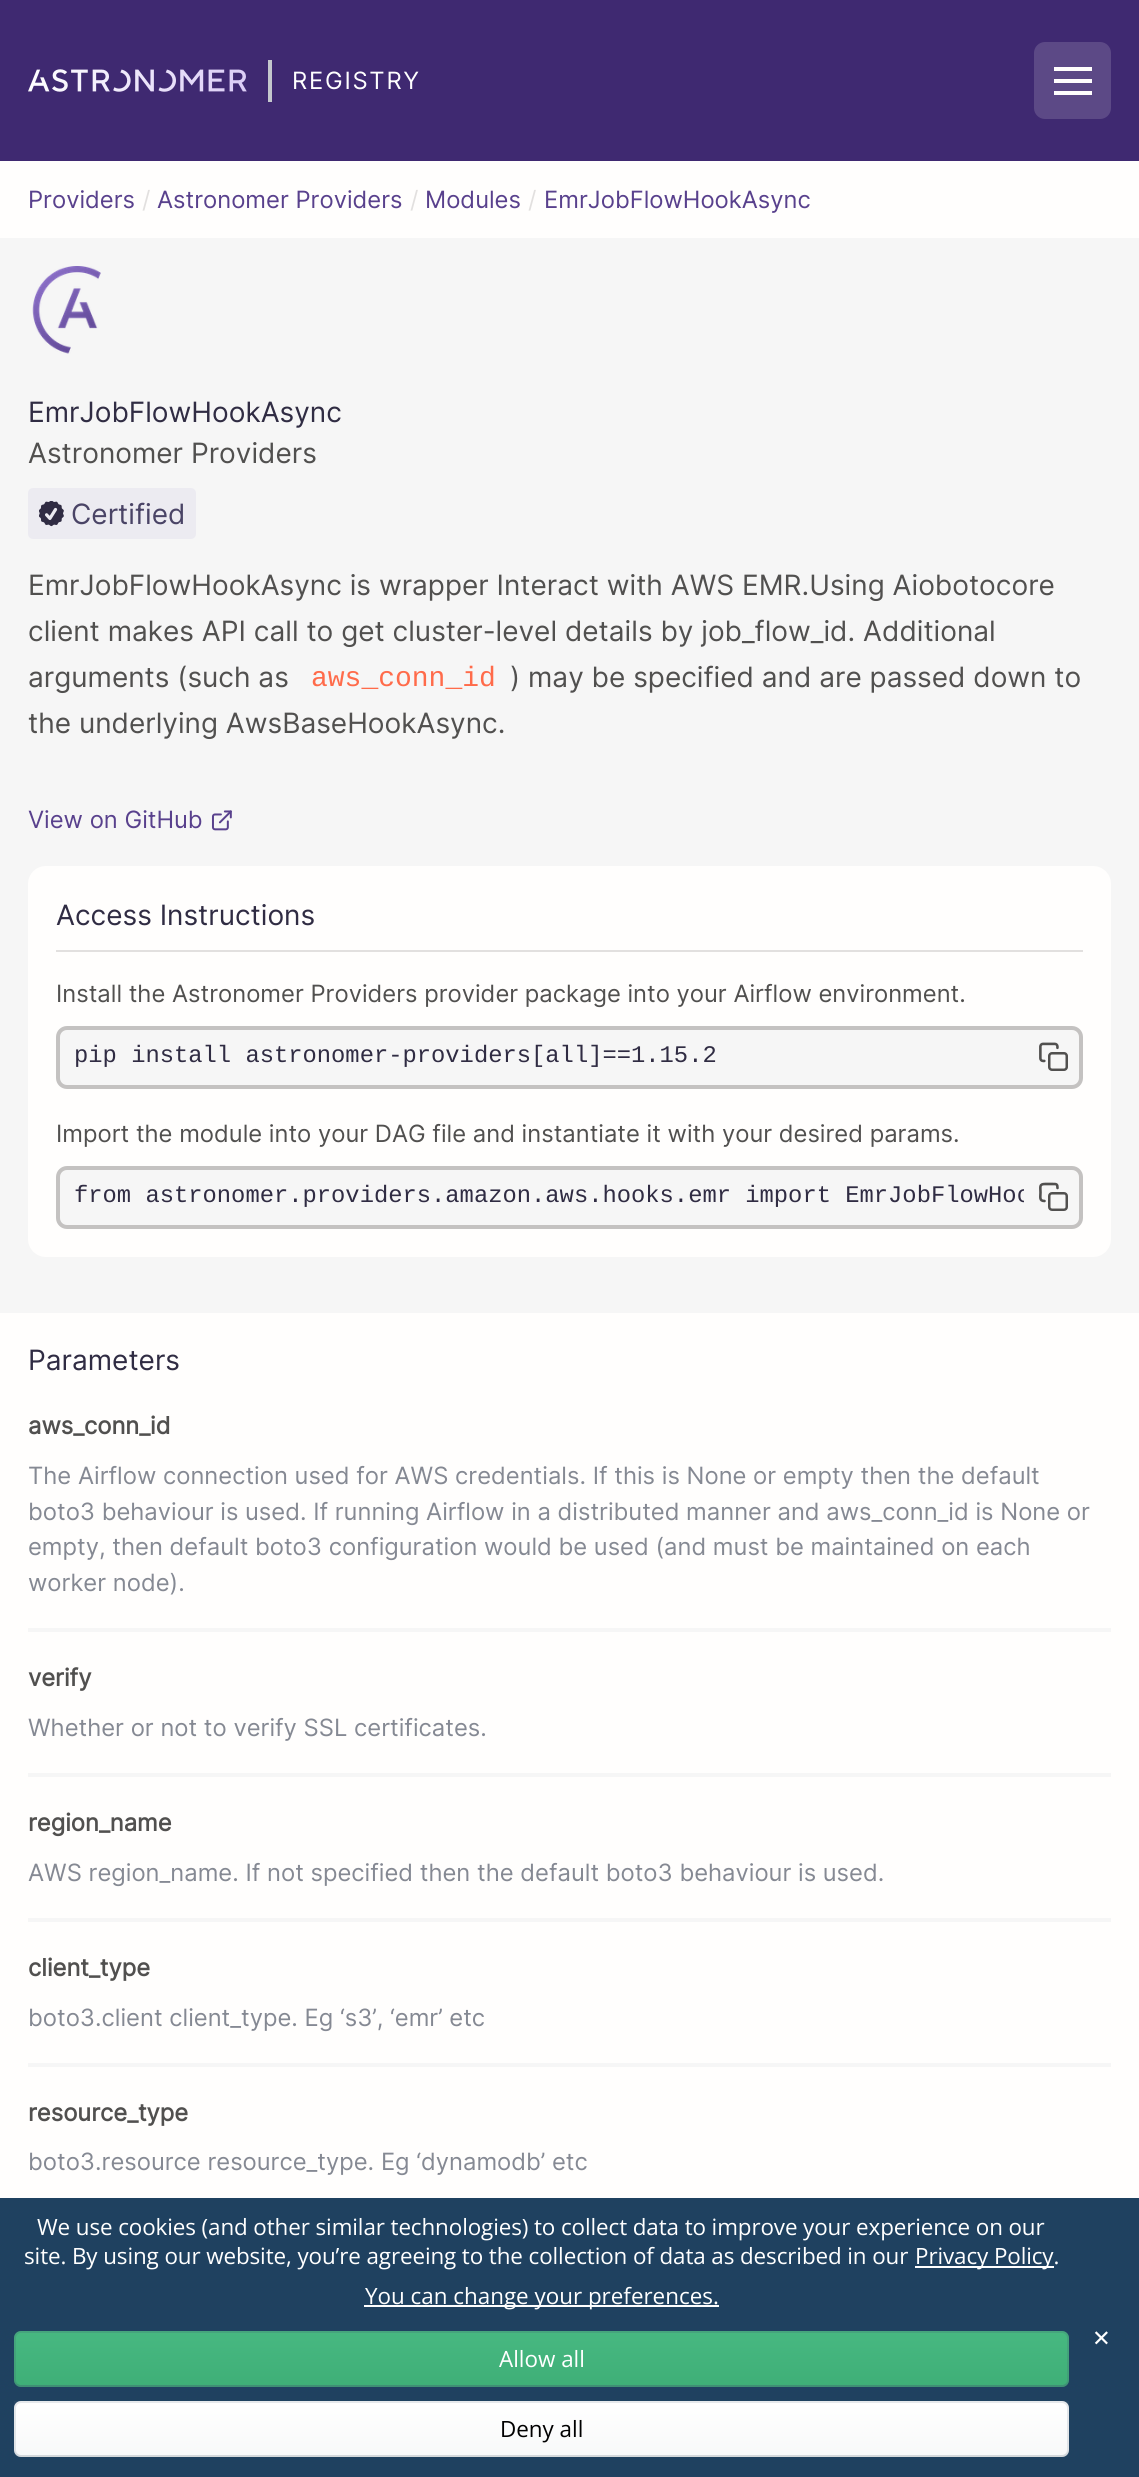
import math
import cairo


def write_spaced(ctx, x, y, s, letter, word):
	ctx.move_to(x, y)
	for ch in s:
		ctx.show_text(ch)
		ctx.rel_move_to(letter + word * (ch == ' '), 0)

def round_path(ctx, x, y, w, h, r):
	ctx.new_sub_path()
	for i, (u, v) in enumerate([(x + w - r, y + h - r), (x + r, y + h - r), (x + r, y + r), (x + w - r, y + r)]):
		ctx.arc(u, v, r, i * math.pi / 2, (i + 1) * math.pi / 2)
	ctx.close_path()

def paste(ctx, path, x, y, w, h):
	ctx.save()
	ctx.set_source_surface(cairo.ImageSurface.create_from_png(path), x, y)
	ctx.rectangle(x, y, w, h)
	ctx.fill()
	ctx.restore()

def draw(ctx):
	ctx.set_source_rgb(1, 0.996, 0.992)
	ctx.paint()
	ctx.set_source_rgb(0.247, 0.161, 0.443)
	ctx.rectangle(0, 0, 1139, 161)
	ctx.fill()
	paste(ctx, 'media/1.png', 28, 69, 219, 23)
	ctx.set_source_rgb(0.769, 0.78, 0.804)
	ctx.rectangle(268, 60, 4, 42)
	ctx.fill()
	ctx.select_font_face('Inter')
	ctx.set_font_size(23.8)
	ctx.set_source_rgb(1, 1, 1)
	write_spaced(ctx, 292, 89, 'REGISTRY', 1.75, 0)
	ctx.set_source_rgb(0.361, 0.286, 0.525)
	round_path(ctx, 1034, 42, 77, 77, 11)
	ctx.fill()
	ctx.set_source_rgb(1, 0.996, 0.992)
	ctx.rectangle(1054, 79, 38, 4)
	ctx.rectangle(1054, 67, 38, 4)
	ctx.rectangle(1054, 91, 38, 4)
	ctx.fill()
	ctx.set_source_rgb(0.349, 0.255, 0.553)
	ctx.move_to(28, 208)
	ctx.show_text('Providers')
	ctx.set_source_rgb(0.886, 0.878, 0.875)
	ctx.move_to(142, 208)
	ctx.show_text('/')
	ctx.set_source_rgb(0.349, 0.255, 0.553)
	ctx.move_to(157, 208)
	ctx.show_text('Astronomer Providers')
	ctx.set_source_rgb(0.886, 0.878, 0.875)
	ctx.move_to(410, 208)
	ctx.show_text('/')
	ctx.set_source_rgb(0.349, 0.255, 0.553)
	ctx.move_to(425, 208)
	ctx.show_text('Modules')
	ctx.set_source_rgb(0.886, 0.878, 0.875)
	ctx.move_to(528, 208)
	ctx.show_text('/')
	ctx.set_source_rgb(0.349, 0.255, 0.553)
	ctx.move_to(544, 208)
	ctx.show_text('EmrJobFlowHookAsync')
	ctx.set_source_rgb(0.961, 0.961, 0.961)
	ctx.rectangle(0, 238, 1139, 1075)
	ctx.fill()
	paste(ctx, 'media/2.png', 32, 266, 69, 88)
	ctx.set_font_size(28)
	ctx.set_source_rgb(0.188, 0.173, 0.263)
	ctx.move_to(28, 422)
	ctx.show_text('EmrJobFlowHookAsync')
	ctx.set_source_rgb(0.318, 0.314, 0.31)
	ctx.move_to(28, 463)
	ctx.show_text('Astronomer Providers')
	ctx.set_source_rgb(0.925, 0.918, 0.945)
	round_path(ctx, 28, 488, 168, 51, 5)
	ctx.fill()
	paste(ctx, 'media/3.png', 39, 501, 25, 26)
	ctx.set_source_rgb(0.29, 0.267, 0.4)
	ctx.move_to(71, 524)
	ctx.show_text('Certified')
	ctx.set_source_rgb(0.318, 0.314, 0.31)
	for x, y, s in [
		(28, 595, 'EmrJobFlowHookAsync is wrapper Interact with AWS EMR.Using Aiobotocore'),
		(28, 641, 'client makes API call to get cluster-level details by job_flow_id. Additional'),
		(28, 687, 'arguments (such as'),
	]:
		ctx.move_to(x, y)
		ctx.show_text(s)
	ctx.select_font_face('Liberation Mono')
	ctx.set_source_rgb(1, 0.42, 0.29)
	ctx.move_to(311, 686)
	ctx.show_text('aws_conn_id')
	ctx.select_font_face('Inter')
	ctx.set_source_rgb(0.318, 0.314, 0.31)
	ctx.move_to(510, 687)
	ctx.show_text(') may be specified and are passed down to')
	ctx.move_to(28, 733)
	ctx.show_text('the underlying AwsBaseHookAsync.')
	ctx.set_font_size(23.8)
	ctx.set_source_rgb(0.349, 0.255, 0.553)
	ctx.move_to(28, 828)
	ctx.show_text('View on GitHub')
	paste(ctx, 'media/4.png', 211, 810, 21, 21)
	ctx.set_source_rgb(1, 0.996, 0.992)
	round_path(ctx, 28, 866, 1083, 391, 18)
	ctx.fill()
	ctx.set_source_rgb(0.886, 0.878, 0.875)
	ctx.rectangle(56, 950, 1027, 2)
	ctx.fill()
	ctx.set_font_size(28)
	ctx.set_source_rgb(0.188, 0.173, 0.263)
	ctx.move_to(56, 925)
	ctx.show_text('Access Instructions')
	ctx.set_font_size(23.8)
	ctx.set_source_rgb(0.318, 0.314, 0.31)
	ctx.move_to(56, 1002)
	ctx.show_text('Install the Astronomer Providers provider package into your Airflow environment.')
	ctx.set_source_rgb(0.961, 0.961, 0.961)
	round_path(ctx, 58, 1028, 1023, 59, 9)
	ctx.fill_preserve()
	ctx.set_source_rgb(0.769, 0.761, 0.757)
	ctx.set_line_width(4)
	ctx.stroke()
	ctx.select_font_face('Liberation Mono')
	ctx.set_source_rgb(0.188, 0.173, 0.263)
	ctx.move_to(74, 1062)
	ctx.show_text('pip install astronomer-providers[all]==1.15.2')
	paste(ctx, 'media/5.png', 1039, 1042, 29, 29)
	ctx.select_font_face('Inter')
	ctx.set_source_rgb(0.318, 0.314, 0.31)
	ctx.move_to(56, 1142)
	ctx.show_text('Import the module into your DAG file and instantiate it with your desired params.')
	ctx.set_source_rgb(0.961, 0.961, 0.961)
	round_path(ctx, 58, 1168, 1023, 59, 9)
	ctx.fill_preserve()
	ctx.set_source_rgb(0.769, 0.761, 0.757)
	ctx.stroke()
	ctx.save()
	ctx.rectangle(74, 1166, 950, 63)
	ctx.clip()
	ctx.select_font_face('Liberation Mono')
	ctx.set_source_rgb(0.188, 0.173, 0.263)
	ctx.move_to(74, 1202)
	ctx.show_text('from astronomer.providers.amazon.aws.hooks.emr import EmrJobFlowHoo')
	ctx.restore()
	round_path(ctx, 1049.25, 1193.25, 17.5, 16.5, 2.75)
	ctx.set_source_rgb(0.318, 0.314, 0.31)
	ctx.set_line_width(2.5)
	ctx.stroke()
	ctx.new_path()
	ctx.move_to(1044.5, 1201)
	ctx.curve_to(1039, 1201, 1040.5, 1197, 1040.5, 1192.5)
	ctx.curve_to(1040.5, 1187, 1039, 1184, 1045, 1184)
	ctx.line_to(1053, 1184)
	ctx.curve_to(1056.5, 1184, 1057.5, 1184, 1057.5, 1188)
	ctx.set_line_width(2.6)
	ctx.set_line_cap(cairo.LINE_CAP_ROUND)
	ctx.set_line_join(cairo.LINE_JOIN_ROUND)
	ctx.stroke()
	ctx.set_font_size(28)
	ctx.set_source_rgb(0.188, 0.173, 0.263)
	ctx.move_to(28, 1370)
	ctx.show_text('Parameters')
	ctx.select_font_face('Inter', cairo.FONT_SLANT_NORMAL, cairo.FONT_WEIGHT_BOLD)
	ctx.set_font_size(23.8)
	ctx.set_source_rgb(0.318, 0.314, 0.31)
	ctx.move_to(28, 1434)
	ctx.show_text('aws_conn_id')
	ctx.select_font_face('Inter')
	ctx.set_source_rgb(0.522, 0.537, 0.576)
	for x, y, s in [
		(28, 1484, 'The Airflow connection used for AWS credentials. If this is None or empty then the default'),
		(28, 1520, 'boto3 behaviour is used. If running Airflow in a distributed manner and aws_conn_id is None or'),
		(28, 1555, 'empty, then default boto3 configuration would be used (and must be maintained on each'),
		(28, 1591, 'worker node).'),
	]:
		ctx.move_to(x, y)
		ctx.show_text(s)
	ctx.set_source_rgb(0.961, 0.961, 0.961)
	ctx.rectangle(28, 1628, 1083, 4)
	ctx.fill()
	ctx.select_font_face('Inter', cairo.FONT_SLANT_NORMAL, cairo.FONT_WEIGHT_BOLD)
	ctx.set_source_rgb(0.318, 0.314, 0.31)
	ctx.move_to(28, 1686)
	ctx.show_text('verify')
	ctx.select_font_face('Inter')
	ctx.set_source_rgb(0.522, 0.537, 0.576)
	ctx.move_to(28, 1736)
	ctx.show_text('Whether or not to verify SSL certificates.')
	ctx.set_source_rgb(0.961, 0.961, 0.961)
	ctx.rectangle(28, 1773, 1083, 4)
	ctx.fill()
	ctx.select_font_face('Inter', cairo.FONT_SLANT_NORMAL, cairo.FONT_WEIGHT_BOLD)
	ctx.set_source_rgb(0.318, 0.314, 0.31)
	ctx.move_to(28, 1831)
	ctx.show_text('region_name')
	ctx.select_font_face('Inter')
	ctx.set_source_rgb(0.522, 0.537, 0.576)
	ctx.move_to(28, 1881)
	ctx.show_text('AWS region_name. If not specified then the default boto3 behaviour is used.')
	ctx.set_source_rgb(0.961, 0.961, 0.961)
	ctx.rectangle(28, 1918, 1083, 4)
	ctx.fill()
	ctx.select_font_face('Inter', cairo.FONT_SLANT_NORMAL, cairo.FONT_WEIGHT_BOLD)
	ctx.set_source_rgb(0.318, 0.314, 0.31)
	ctx.move_to(28, 1976)
	ctx.show_text('client_type')
	ctx.select_font_face('Inter')
	ctx.set_source_rgb(0.522, 0.537, 0.576)
	ctx.move_to(28, 2026)
	ctx.show_text('boto3.client client_type. Eg ‘s3’, ‘emr’ etc')
	ctx.set_source_rgb(0.961, 0.961, 0.961)
	ctx.rectangle(28, 2063, 1083, 4)
	ctx.fill()
	ctx.select_font_face('Inter', cairo.FONT_SLANT_NORMAL, cairo.FONT_WEIGHT_BOLD)
	ctx.set_source_rgb(0.318, 0.314, 0.31)
	ctx.move_to(28, 2121)
	ctx.show_text('resource_type')
	ctx.select_font_face('Inter')
	ctx.set_source_rgb(0.522, 0.537, 0.576)
	ctx.move_to(28, 2170)
	ctx.show_text('boto3.resource resource_type. Eg ‘dynamodb’ etc')
	ctx.set_source_rgb(0.122, 0.255, 0.376)
	ctx.rectangle(0, 2198, 1139, 279)
	ctx.fill()
	ctx.select_font_face('Open Sans')
	ctx.set_font_size(22.4)
	ctx.set_source_rgb(1, 1, 1)
	write_spaced(ctx, 37, 2235, 'We use cookies (and other similar technologies) to collect data to improve your experience on our', -0.1, 0)
	write_spaced(ctx, 24, 2264, 'site. By using our website, you’re agreeing to the collection of data as described in our', -0.1, 0)
	ctx.rectangle(915, 2266, 139, 2)
	ctx.fill()
	write_spaced(ctx, 915, 2264, 'Privacy Policy.', -0.1, 0)
	ctx.rectangle(364, 2305, 355, 2)
	ctx.fill()
	ctx.move_to(365, 2304)
	ctx.show_text('You can change your preferences.')
	ctx.select_font_face('DejaVu Sans')
	ctx.move_to(1092, 2346)
	ctx.show_text('✕')
	gradient = cairo.LinearGradient(542, 2387, 542, 2331)
	gradient.add_color_stop_rgba(0, 0.247, 0.686, 0.467, 1)
	gradient.add_color_stop_rgba(1, 0.278, 0.722, 0.506, 1)
	ctx.set_source(gradient)
	round_path(ctx, 14, 2331, 1055, 56, 7)
	ctx.fill()
	ctx.set_source_rgba(0.263, 0.353, 0.435, 0.2)
	ctx.new_path()
	ctx.move_to(14, 2378)
	ctx.curve_to(14, 2382, 16, 2387, 21, 2387)
	ctx.line_to(1062, 2387)
	ctx.curve_to(1067, 2387, 1069, 2382, 1069, 2378)
	ctx.curve_to(1069, 2382, 1066, 2385, 1062, 2385)
	ctx.line_to(21, 2385)
	ctx.curve_to(17, 2385, 14, 2382, 14, 2378)
	ctx.close_path()
	ctx.fill()
	round_path(ctx, 15, 2332, 1053, 54, 6)
	ctx.set_line_width(2)
	ctx.set_line_cap(cairo.LINE_CAP_BUTT)
	ctx.set_line_join(cairo.LINE_JOIN_MITER)
	ctx.stroke()
	ctx.select_font_face('Open Sans')
	ctx.set_source_rgb(1, 1, 1)
	ctx.move_to(499, 2367)
	ctx.show_text('Allow all')
	round_path(ctx, 14, 2401, 1055, 56, 7)
	ctx.fill()
	gradient = cairo.LinearGradient(542, 2457, 542, 2401)
	gradient.add_color_stop_rgba(0, 0.263, 0.353, 0.435, 0.04)
	gradient.add_color_stop_rgba(1, 1, 1, 1, 0.04)
	ctx.set_source(gradient)
	ctx.rectangle(14, 2401, 1055, 56)
	ctx.fill()
	ctx.set_source_rgba(0.263, 0.353, 0.435, 0.08)
	ctx.new_path()
	ctx.move_to(14, 2448)
	ctx.curve_to(14, 2452, 16, 2457, 21, 2457)
	ctx.line_to(1062, 2457)
	ctx.curve_to(1067, 2457, 1069, 2452, 1069, 2448)
	ctx.curve_to(1069, 2452, 1066, 2455, 1062, 2455)
	ctx.line_to(21, 2455)
	ctx.curve_to(17, 2455, 14, 2452, 14, 2448)
	ctx.close_path()
	ctx.fill()
	round_path(ctx, 15, 2402, 1053, 54, 6)
	ctx.set_source_rgba(0.263, 0.353, 0.435, 0.14)
	ctx.stroke()
	ctx.set_source_rgb(0, 0, 0)
	ctx.move_to(500, 2437)
	ctx.show_text('Deny all')


surface = cairo.ImageSurface(cairo.FORMAT_RGB24, 1139, 2477)
ctx = cairo.Context(surface)
options = cairo.FontOptions()
options.set_hint_metrics(cairo.HINT_METRICS_OFF)
options.set_hint_style(cairo.HINT_STYLE_NONE)
ctx.set_font_options(options)
ctx.set_miter_limit(4)
draw(ctx)
surface.write_to_png('image.png')
